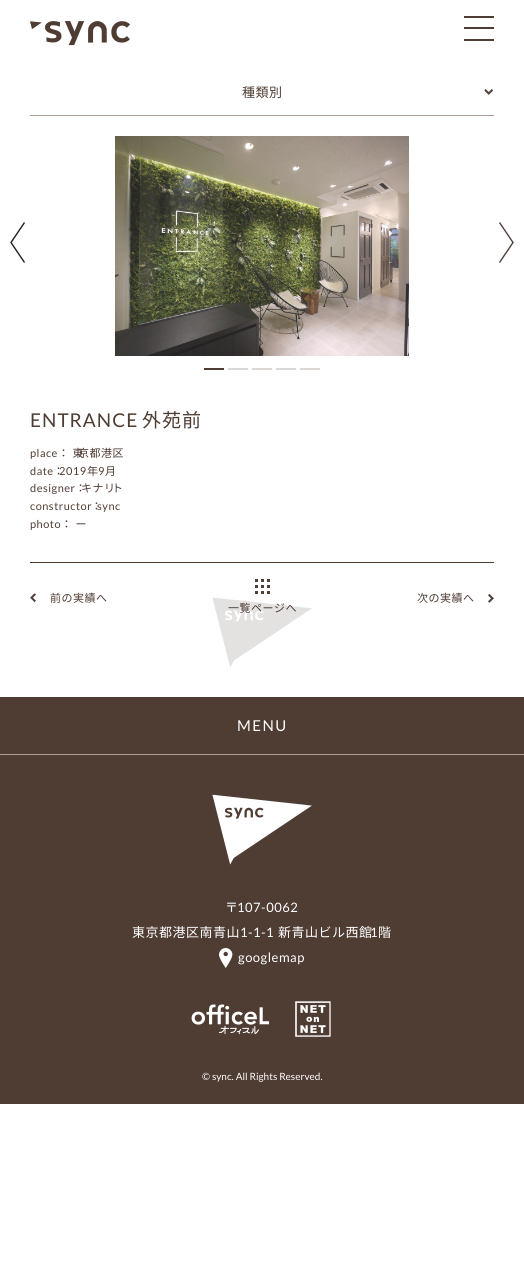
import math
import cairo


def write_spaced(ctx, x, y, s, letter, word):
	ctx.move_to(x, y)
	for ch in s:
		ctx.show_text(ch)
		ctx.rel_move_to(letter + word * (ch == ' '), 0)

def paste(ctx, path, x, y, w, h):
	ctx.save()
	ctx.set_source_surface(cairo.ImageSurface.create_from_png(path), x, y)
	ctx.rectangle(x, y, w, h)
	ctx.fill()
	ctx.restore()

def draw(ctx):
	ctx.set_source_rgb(1, 1, 1)
	ctx.paint()
	paste(ctx, 'media/1.png', 30, 21, 100, 25)
	ctx.set_source_rgb(0.31, 0.235, 0.2)
	ctx.rectangle(464, 16, 30, 2)
	ctx.rectangle(464, 27, 30, 2)
	ctx.rectangle(464, 39, 30, 2)
	ctx.fill()
	paste(ctx, 'media/2.png', 484, 89, 9, 6)
	ctx.set_source_rgb(0.667, 0.62, 0.6)
	ctx.rectangle(30, 115, 464, 1)
	ctx.fill()
	ctx.select_font_face('Noto Sans JP')
	ctx.set_font_size(13)
	ctx.set_source_rgb(0.31, 0.235, 0.2)
	write_spaced(ctx, 242, 97, '種類別', 0.5, 0)
	ctx.new_path()
	ctx.move_to(24.5, 222.5)
	ctx.line_to(11, 242.5)
	ctx.line_to(24.5, 262.5)
	ctx.set_source_rgb(0.129, 0.129, 0.129)
	ctx.set_line_width(1.4)
	ctx.stroke()
	paste(ctx, 'media/3.png', 115, 136, 294, 220)
	ctx.new_path()
	ctx.move_to(499.5, 262.5)
	ctx.line_to(513, 242.5)
	ctx.line_to(499.5, 222.5)
	ctx.set_source_rgb(0.306, 0.251, 0.224)
	ctx.stroke()
	ctx.set_source_rgb(0.31, 0.235, 0.2)
	ctx.rectangle(204, 368, 20, 2)
	ctx.fill()
	ctx.set_source_rgb(0.863, 0.847, 0.839)
	ctx.rectangle(228, 368, 20, 2)
	ctx.rectangle(252, 368, 20, 2)
	ctx.rectangle(276, 368, 20, 2)
	ctx.rectangle(300, 368, 20, 2)
	ctx.fill()
	ctx.select_font_face('Lato')
	ctx.set_font_size(19)
	ctx.set_source_rgb(0.31, 0.235, 0.2)
	write_spaced(ctx, 30, 427, 'ENTRANCE', 1, 0)
	ctx.select_font_face('Noto Sans JP')
	write_spaced(ctx, 142, 427, '外苑前', 1, 0)
	ctx.rectangle(30, 562, 464, 1)
	ctx.fill()
	ctx.select_font_face('Lato')
	ctx.set_font_size(11)
	write_spaced(ctx, 30, 457, 'place', 0.5, 0)
	ctx.select_font_face('Noto Sans JP')
	write_spaced(ctx, 58, 457, '： 東', 0.5, 0)
	write_spaced(ctx, 78, 457, '京都港区', 0.5, 0)
	ctx.select_font_face('Lato')
	write_spaced(ctx, 30, 475, 'date', 0.5, 0)
	ctx.select_font_face('Noto Sans JP')
	for x, y, s in [
		(53, 475, '：'),
		(87, 475, '年'),
		(105, 475, '月'),
	]:
		write_spaced(ctx, x, y, s, 0.5, 0)
	ctx.select_font_face('Lato')
	for x, y, s in [
		(59, 475, '2019'),
		(98, 475, '9'),
		(30, 492, 'designer'),
	]:
		write_spaced(ctx, x, y, s, 0.5, 0)
	ctx.select_font_face('Noto Sans JP')
	write_spaced(ctx, 75, 492, '：', 0.5, 0)
	write_spaced(ctx, 81, 492, 'キナリ', 0.5, 0)
	write_spaced(ctx, 112, 492, 'ト', 0.5, 0)
	ctx.select_font_face('Lato')
	write_spaced(ctx, 30, 510, 'constructor', 0.5, 0)
	ctx.select_font_face('Noto Sans JP')
	write_spaced(ctx, 91, 510, '：', 0.5, 0)
	ctx.select_font_face('Lato')
	write_spaced(ctx, 97, 510, 'sync', 0.5, 0)
	write_spaced(ctx, 30, 528, 'photo', 0.5, 0)
	ctx.select_font_face('Noto Sans JP')
	write_spaced(ctx, 61, 528, '： ー', 0.5, 0)
	paste(ctx, 'media/4.png', 30, 593, 6, 9)
	write_spaced(ctx, 50, 602, '前の実績へ', 0.5, 0)
	paste(ctx, 'media/5.png', 488, 594, 6, 9)
	write_spaced(ctx, 417, 602, '次の実績へ', 0.5, 0)
	paste(ctx, 'media/6.png', 255, 579, 15, 15)
	write_spaced(ctx, 228, 612, '一覧ページへ', 0.5, 0)
	paste(ctx, 'media/7.png', 212, 597, 100, 70)
	ctx.rectangle(0, 697, 524, 407)
	ctx.fill()
	ctx.set_source_rgb(0.667, 0.62, 0.6)
	ctx.rectangle(0, 754, 524, 1)
	ctx.fill()
	ctx.select_font_face('Lato')
	ctx.set_font_size(15)
	ctx.set_source_rgb(1, 1, 1)
	write_spaced(ctx, 237, 731, 'MENU', 1.5, 0)
	paste(ctx, 'media/8.png', 212, 794, 100, 71)
	ctx.select_font_face('Noto Sans JP')
	ctx.set_font_size(13)
	write_spaced(ctx, 225, 912, '〒', 0.5, 0)
	ctx.select_font_face('Lato')
	write_spaced(ctx, 237, 912, '107-0062', 0.5, 0)
	ctx.select_font_face('Noto Sans JP')
	write_spaced(ctx, 132, 937, '東京都港区南青山', 0.5, 0)
	ctx.select_font_face('Lato')
	write_spaced(ctx, 240, 937, '1-1-1', 0.5, 0)
	ctx.select_font_face('Noto Sans JP')
	write_spaced(ctx, 278, 937, '新青山ビル西館', 0.5, 0)
	ctx.select_font_face('Lato')
	write_spaced(ctx, 370, 937, '1', 0.5, 0)
	ctx.select_font_face('Noto Sans JP')
	write_spaced(ctx, 378, 937, '階', 0.5, 0)
	paste(ctx, 'media/9.png', 219, 948, 14, 20)
	ctx.select_font_face('Lato')
	write_spaced(ctx, 238, 962, 'googlemap', 0.5, 0)
	paste(ctx, 'media/10.png', 191, 1004, 79, 31)
	paste(ctx, 'media/11.png', 295, 1001, 36, 36)
	ctx.set_font_size(10)
	ctx.move_to(202, 1080)
	ctx.show_text('© sync. All Rights Reserved.')


surface = cairo.ImageSurface(cairo.FORMAT_RGB24, 524, 1264)
ctx = cairo.Context(surface)
options = cairo.FontOptions()
options.set_hint_metrics(cairo.HINT_METRICS_OFF)
options.set_hint_style(cairo.HINT_STYLE_NONE)
ctx.set_font_options(options)
ctx.set_miter_limit(4)
draw(ctx)
surface.write_to_png('image.png')
